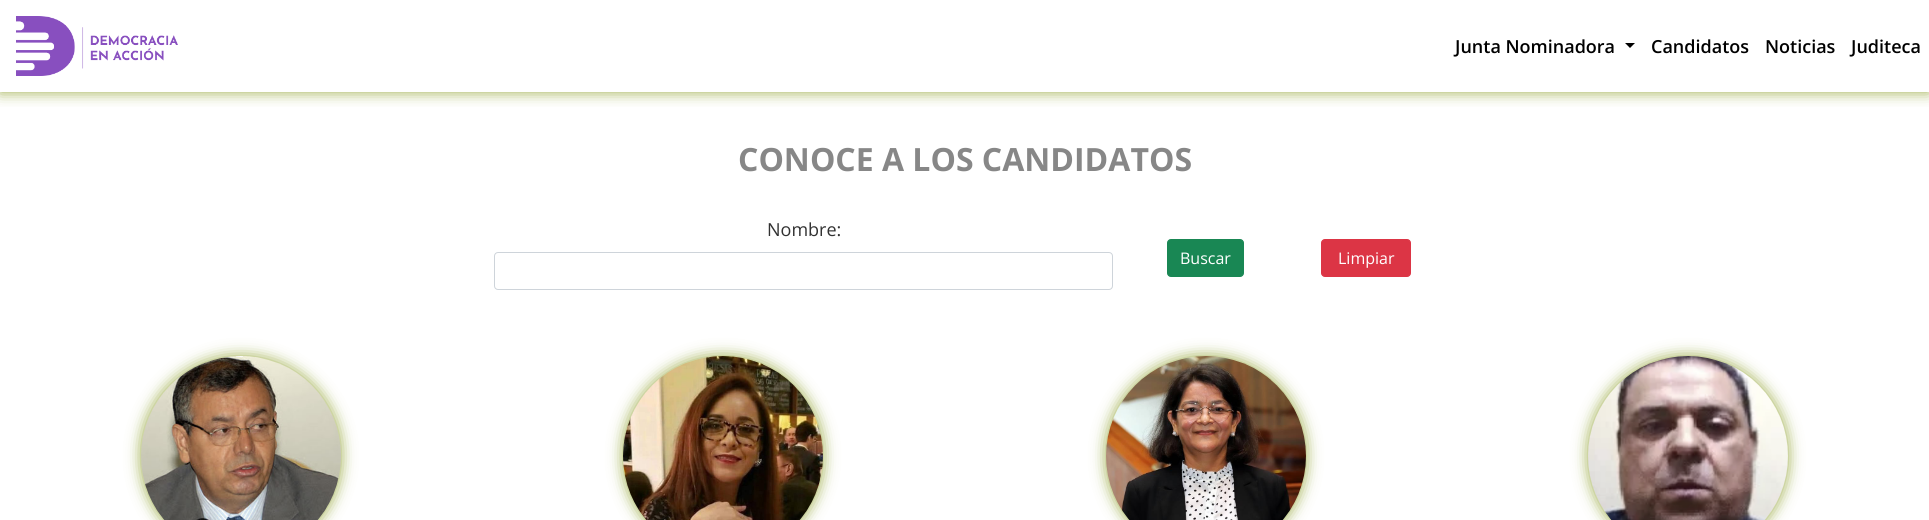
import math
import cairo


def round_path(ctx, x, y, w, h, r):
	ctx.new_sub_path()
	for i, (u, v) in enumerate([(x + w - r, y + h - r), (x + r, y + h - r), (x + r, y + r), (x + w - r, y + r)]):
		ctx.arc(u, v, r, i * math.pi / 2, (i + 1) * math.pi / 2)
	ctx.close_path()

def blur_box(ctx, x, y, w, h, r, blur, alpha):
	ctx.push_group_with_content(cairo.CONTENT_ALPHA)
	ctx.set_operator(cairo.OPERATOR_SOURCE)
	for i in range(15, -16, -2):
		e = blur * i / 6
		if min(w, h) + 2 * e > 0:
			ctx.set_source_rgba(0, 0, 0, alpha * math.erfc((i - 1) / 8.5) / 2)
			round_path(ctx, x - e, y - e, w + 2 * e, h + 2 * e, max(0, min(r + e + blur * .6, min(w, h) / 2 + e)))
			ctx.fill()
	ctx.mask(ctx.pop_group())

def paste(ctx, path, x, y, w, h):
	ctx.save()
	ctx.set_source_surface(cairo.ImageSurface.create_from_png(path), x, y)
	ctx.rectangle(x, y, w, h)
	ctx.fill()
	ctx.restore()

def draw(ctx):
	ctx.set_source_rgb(1, 1, 1)
	ctx.paint()
	ctx.save()
	ctx.rectangle(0, 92, 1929, 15)
	ctx.clip()
	ctx.set_source_rgb(0.51, 0.584, 0.086)
	blur_box(ctx, 0, 0, 1929, 92, 0, 7.5, 0.8)
	ctx.restore()
	paste(ctx, 'media/1.png', 16, 16, 162, 60)
	ctx.select_font_face('Open Sans SemiBold')
	ctx.set_font_size(18)
	ctx.set_source_rgb(0, 0, 0)
	ctx.move_to(1455, 53)
	ctx.show_text('Junta Nominadora')
	ctx.new_path()
	ctx.move_to(1625, 43)
	ctx.line_to(1635, 43)
	ctx.line_to(1630, 48)
	ctx.close_path()
	ctx.fill()
	for x, y, s in [
		(1651, 53, 'Candidatos'),
		(1765, 53, 'Noticias'),
		(1851, 53, 'Juditeca'),
	]:
		ctx.move_to(x, y)
		ctx.show_text(s)
	ctx.select_font_face('Open Sans', cairo.FONT_SLANT_NORMAL, cairo.FONT_WEIGHT_BOLD)
	ctx.set_font_size(32)
	ctx.set_source_rgb(0.529, 0.529, 0.529)
	ctx.move_to(738, 171)
	ctx.show_text('CONOCE A LOS CANDIDATOS')
	ctx.select_font_face('Open Sans')
	ctx.set_font_size(18)
	ctx.set_source_rgb(0.196, 0.196, 0.196)
	ctx.move_to(767, 236)
	ctx.show_text('Nombre:')
	round_path(ctx, 494.5, 252.5, 618, 37, 3.5)
	ctx.set_source_rgb(0.808, 0.831, 0.855)
	ctx.set_line_width(1)
	ctx.stroke()
	ctx.set_source_rgb(0.098, 0.529, 0.329)
	round_path(ctx, 1167.5, 239.5, 76, 37, 3.5)
	ctx.fill_preserve()
	ctx.stroke()
	ctx.set_font_size(16)
	ctx.set_source_rgb(1, 1, 1)
	ctx.move_to(1180, 264)
	ctx.show_text('Buscar')
	ctx.set_source_rgb(0.863, 0.208, 0.271)
	round_path(ctx, 1321.5, 239.5, 89, 37, 3.5)
	ctx.fill_preserve()
	ctx.stroke()
	ctx.set_source_rgb(1, 1, 1)
	ctx.move_to(1338, 264)
	ctx.show_text('Limpiar')
	ctx.set_source_rgb(0.51, 0.584, 0.086)
	blur_box(ctx, 141, 356, 200, 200, 100, 7.5, 0.8)
	paste(ctx, 'media/2.png', 141, 356, 200, 164)
	blur_box(ctx, 623, 356, 200, 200, 100, 7.5, 0.8)
	paste(ctx, 'media/3.png', 623, 356, 200, 164)
	blur_box(ctx, 1106, 356, 200, 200, 100, 7.5, 0.8)
	paste(ctx, 'media/4.png', 1106, 356, 200, 164)
	blur_box(ctx, 1588, 356, 200, 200, 100, 7.5, 0.8)
	paste(ctx, 'media/5.png', 1588, 356, 200, 164)


surface = cairo.ImageSurface(cairo.FORMAT_RGB24, 1929, 520)
ctx = cairo.Context(surface)
options = cairo.FontOptions()
options.set_hint_metrics(cairo.HINT_METRICS_OFF)
options.set_hint_style(cairo.HINT_STYLE_NONE)
ctx.set_font_options(options)
ctx.set_miter_limit(4)
draw(ctx)
surface.write_to_png('image.png')
